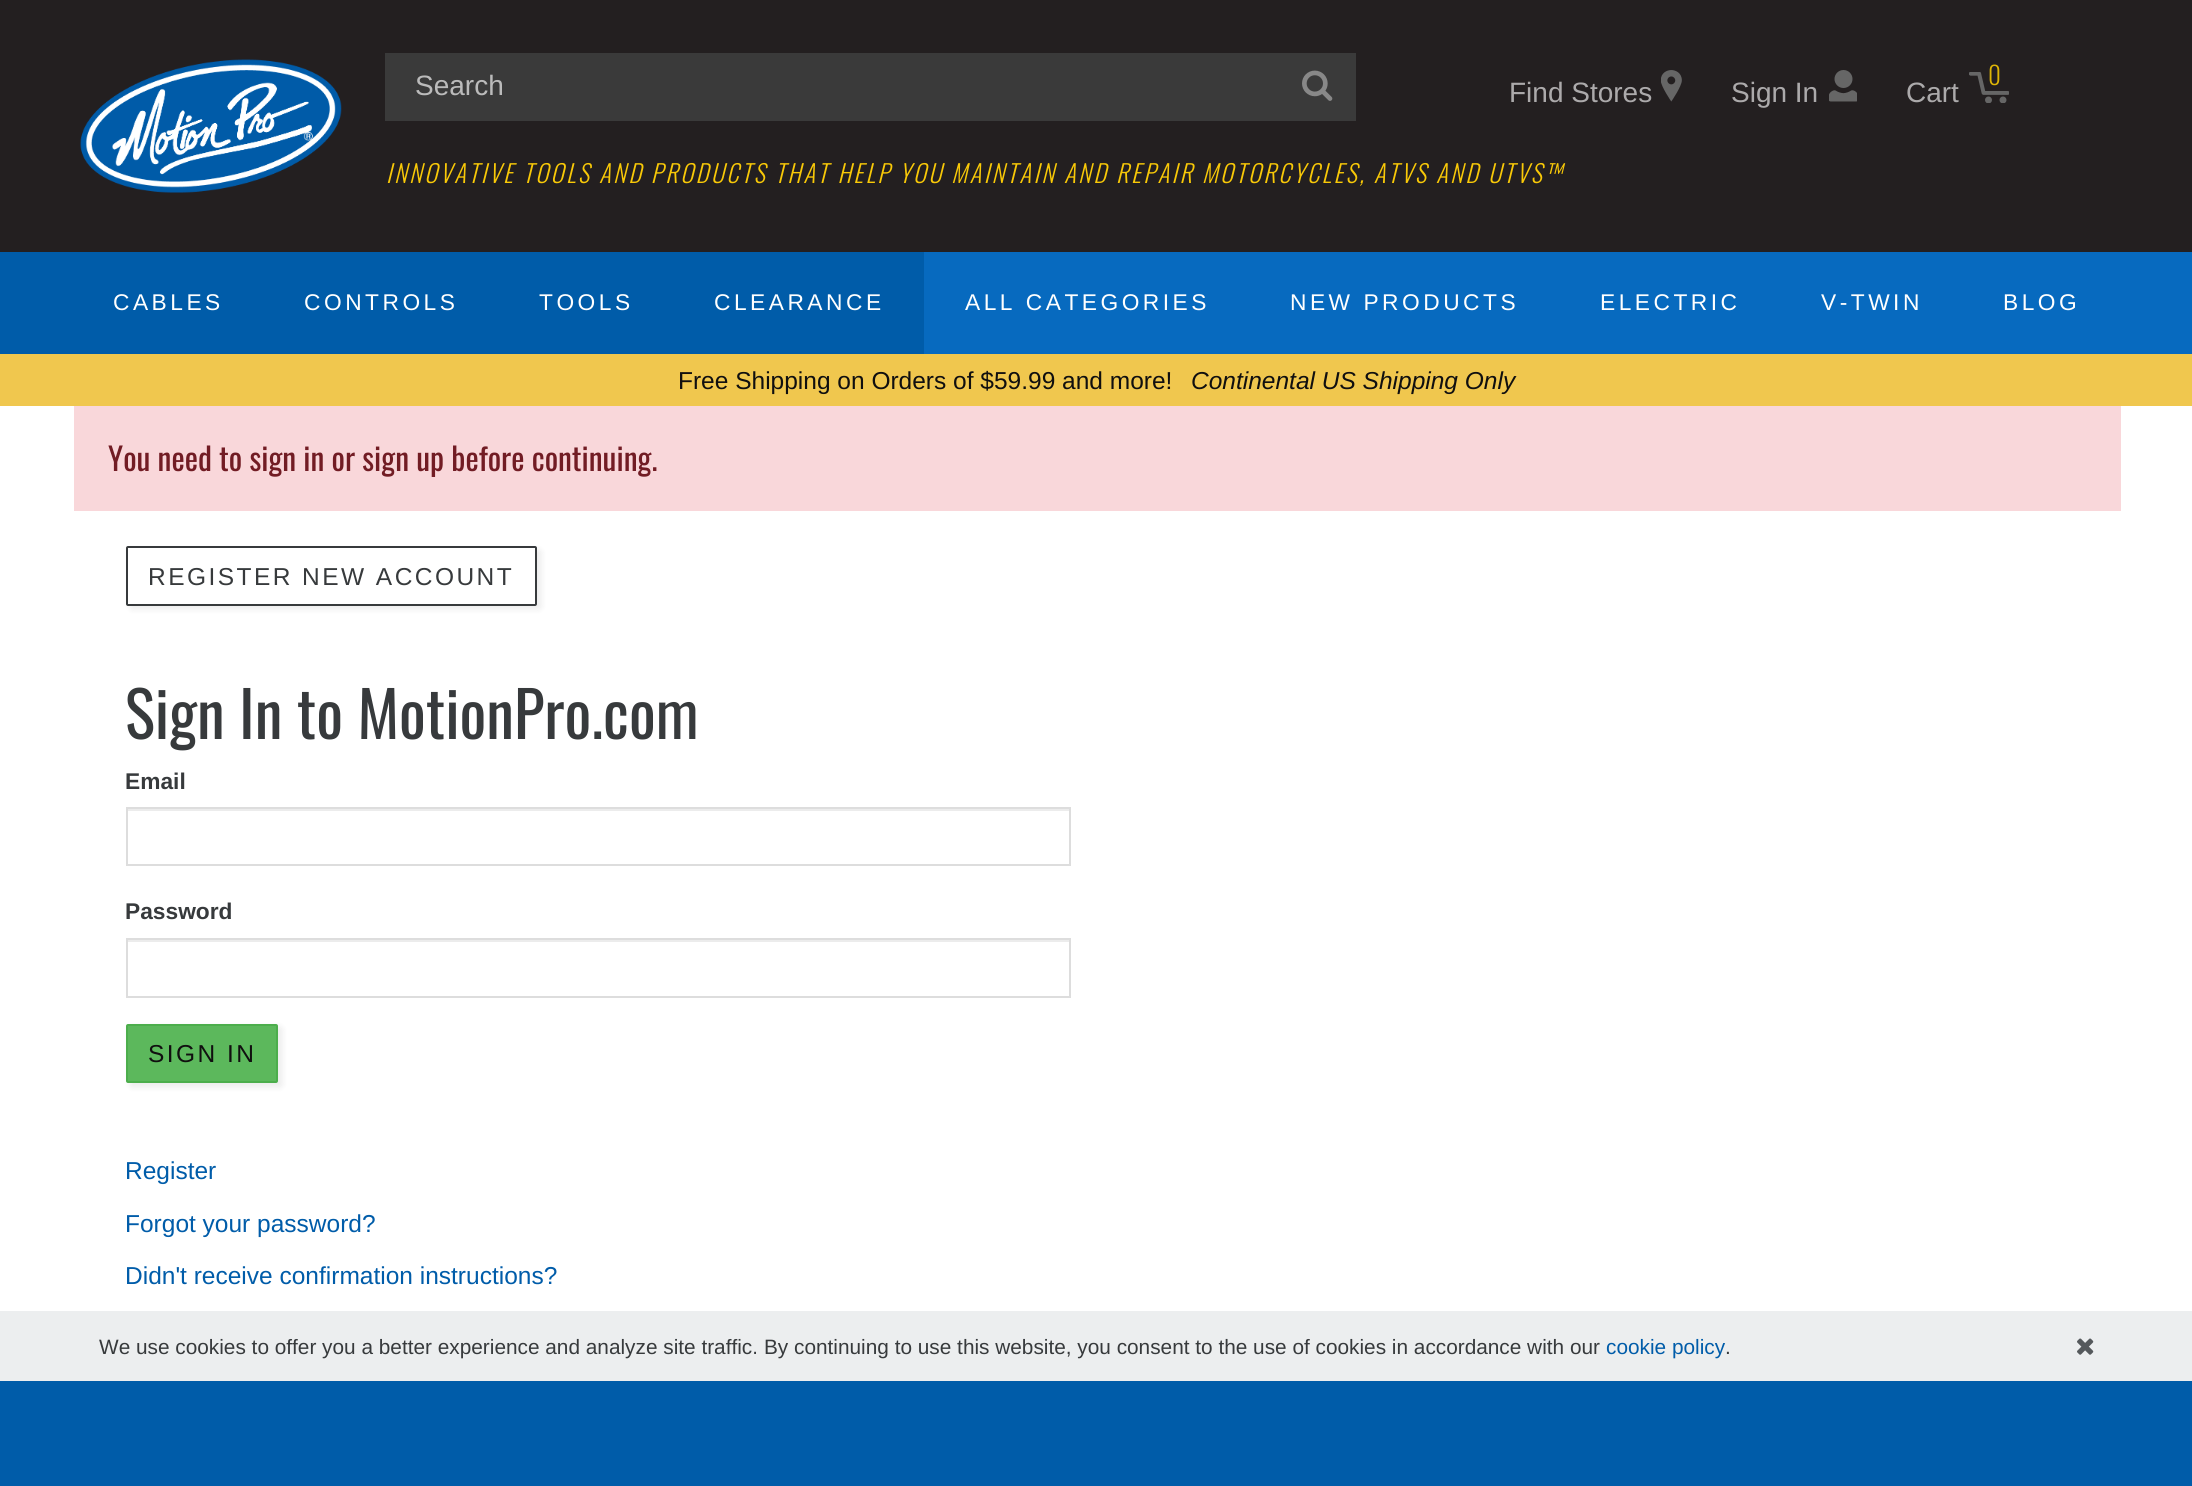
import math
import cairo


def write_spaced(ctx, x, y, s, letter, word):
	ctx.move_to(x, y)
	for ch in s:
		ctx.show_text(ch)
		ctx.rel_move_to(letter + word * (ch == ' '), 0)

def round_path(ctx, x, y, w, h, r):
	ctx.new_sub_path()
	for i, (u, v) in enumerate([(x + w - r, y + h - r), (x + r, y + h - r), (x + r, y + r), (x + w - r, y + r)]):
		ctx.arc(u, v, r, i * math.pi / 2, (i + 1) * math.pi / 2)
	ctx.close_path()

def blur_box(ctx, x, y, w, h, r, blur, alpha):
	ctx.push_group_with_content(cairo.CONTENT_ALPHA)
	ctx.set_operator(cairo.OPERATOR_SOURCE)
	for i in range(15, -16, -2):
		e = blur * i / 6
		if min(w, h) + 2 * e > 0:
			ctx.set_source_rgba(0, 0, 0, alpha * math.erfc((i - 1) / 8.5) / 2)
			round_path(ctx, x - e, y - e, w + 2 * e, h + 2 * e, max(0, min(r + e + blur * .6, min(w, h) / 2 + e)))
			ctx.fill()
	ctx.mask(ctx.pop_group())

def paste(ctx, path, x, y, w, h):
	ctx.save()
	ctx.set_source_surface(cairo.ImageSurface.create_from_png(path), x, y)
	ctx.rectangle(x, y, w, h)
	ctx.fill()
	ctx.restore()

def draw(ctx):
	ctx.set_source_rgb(0.137, 0.122, 0.125)
	ctx.paint()
	paste(ctx, 'media/1.png', 80, 59, 262, 134)
	ctx.set_source_rgb(0.227, 0.227, 0.227)
	ctx.rectangle(385, 53, 971, 68)
	ctx.fill()
	ctx.select_font_face('Liberation Sans')
	ctx.set_font_size(28)
	ctx.set_source_rgb(0.733, 0.733, 0.733)
	ctx.move_to(415, 95)
	ctx.show_text('Search')
	paste(ctx, 'media/2.png', 1302, 70, 31, 31)
	ctx.select_font_face('Oswald Light', cairo.FONT_SLANT_ITALIC)
	ctx.set_font_size(24.5)
	ctx.set_source_rgb(0.976, 0.788, 0.031)
	write_spaced(ctx, 386, 183, 'INNOVATIVE TOOLS AND PRODUCTS THAT HELP YOU MAINTAIN AND REPAIR MOTORCYCLES, ATVS AND UTVS™', 2.45, 0)
	ctx.select_font_face('Liberation Sans')
	ctx.set_font_size(28)
	ctx.set_source_rgb(0.675, 0.667, 0.671)
	ctx.move_to(1509, 102)
	ctx.show_text('Find Stores')
	paste(ctx, 'media/3.png', 1661, 70, 21, 32)
	ctx.move_to(1731, 102)
	ctx.show_text('Sign In')
	paste(ctx, 'media/4.png', 1829, 70, 28, 32)
	paste(ctx, 'media/5.png', 1969, 72, 40, 31)
	ctx.select_font_face('Oswald Light')
	ctx.set_font_size(25)
	ctx.set_source_rgb(0.871, 0.71, 0.027)
	write_spaced(ctx, 1988, 85, '0', 2, 0)
	ctx.select_font_face('Liberation Sans')
	ctx.set_font_size(28)
	ctx.set_source_rgb(0.675, 0.667, 0.671)
	ctx.move_to(1906, 102)
	ctx.show_text('Cart')
	ctx.set_source_rgb(0, 0.361, 0.663)
	ctx.rectangle(0, 252, 924, 102)
	ctx.fill()
	ctx.set_source_rgb(0.031, 0.416, 0.749)
	ctx.rectangle(924, 252, 1268, 102)
	ctx.fill()
	ctx.set_font_size(22.75)
	ctx.set_source_rgb(1, 1, 1)
	for x, y, s in [
		(113, 310, 'CABLES'),
		(304, 310, 'CONTROLS'),
		(539, 310, 'TOOLS'),
		(714, 310, 'CLEARANCE'),
		(965, 310, 'ALL CATEGORIES'),
		(1290, 310, 'NEW PRODUCTS'),
		(1600, 310, 'ELECTRIC'),
		(1821, 310, 'V-TWIN'),
		(2003, 310, 'BLOG'),
	]:
		write_spaced(ctx, x, y, s, 3.5, 0)
	ctx.set_source_rgb(0.941, 0.78, 0.306)
	ctx.rectangle(0, 354, 2192, 52)
	ctx.fill()
	ctx.set_font_size(24.5)
	ctx.set_source_rgb(0.063, 0.059, 0.059)
	ctx.move_to(678, 389)
	ctx.show_text('Free Shipping on Orders of $59.99 and more!')
	ctx.select_font_face('Liberation Sans', cairo.FONT_SLANT_ITALIC)
	ctx.move_to(1191, 389)
	ctx.show_text('Continental US Shipping Only')
	ctx.set_source_rgb(1, 1, 1)
	ctx.rectangle(0, 406, 2192, 905)
	ctx.fill()
	ctx.set_source_rgb(0.973, 0.843, 0.855)
	ctx.rectangle(74, 406, 2047, 105)
	ctx.fill()
	ctx.select_font_face('Oswald')
	ctx.set_font_size(31.5)
	ctx.set_source_rgb(0.447, 0.11, 0.141)
	ctx.move_to(108, 471)
	ctx.show_text('You need to sign in or sign up before continuing.')
	ctx.save()
	ctx.set_fill_rule(cairo.FILL_RULE_EVEN_ODD)
	ctx.new_path()
	ctx.move_to(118, 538)
	ctx.line_to(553, 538)
	ctx.line_to(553, 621)
	ctx.line_to(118, 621)
	ctx.close_path()
	ctx.move_to(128, 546)
	ctx.line_to(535, 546)
	ctx.curve_to(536, 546, 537, 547, 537, 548)
	ctx.line_to(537, 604)
	ctx.curve_to(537, 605, 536, 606, 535, 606)
	ctx.line_to(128, 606)
	ctx.curve_to(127, 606, 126, 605, 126, 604)
	ctx.line_to(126, 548)
	ctx.curve_to(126, 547, 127, 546, 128, 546)
	ctx.close_path()
	ctx.clip()
	ctx.set_source_rgb(0, 0, 0)
	blur_box(ctx, 130, 550, 411, 59, 2, 3.5, 0.08)
	ctx.restore()
	round_path(ctx, 127, 547, 409, 58, 1)
	ctx.set_source_rgb(0.216, 0.227, 0.235)
	ctx.stroke()
	ctx.select_font_face('Liberation Sans')
	ctx.set_font_size(24.5)
	write_spaced(ctx, 148, 585, 'REGISTER NEW ACCOUNT', 2.45, 0)
	ctx.select_font_face('Oswald')
	ctx.set_font_size(63)
	ctx.move_to(125, 739)
	ctx.show_text('Sign In to MotionPro.com')
	ctx.select_font_face('Liberation Sans', cairo.FONT_SLANT_NORMAL, cairo.FONT_WEIGHT_BOLD)
	ctx.set_font_size(22.75)
	ctx.move_to(125, 789)
	ctx.show_text('Email')
	ctx.set_source_rgb(0.925, 0.925, 0.925)
	ctx.rectangle(128, 809, 941, 2)
	ctx.fill()
	ctx.rectangle(127, 808, 943, 57)
	ctx.set_source_rgb(0.867, 0.867, 0.867)
	ctx.stroke()
	ctx.set_source_rgb(0.216, 0.227, 0.235)
	ctx.move_to(125, 919)
	ctx.show_text('Password')
	ctx.set_source_rgb(0.925, 0.925, 0.925)
	ctx.rectangle(128, 940, 941, 2)
	ctx.fill()
	ctx.rectangle(127, 939, 943, 58)
	ctx.set_source_rgb(0.867, 0.867, 0.867)
	ctx.stroke()
	ctx.set_source_rgb(0, 0, 0)
	blur_box(ctx, 130, 1027, 152, 60, 2, 3.5, 0.08)
	ctx.set_source_rgb(0.361, 0.722, 0.361)
	round_path(ctx, 127, 1025, 150, 57, 1)
	ctx.fill_preserve()
	ctx.set_source_rgb(0.298, 0.682, 0.298)
	ctx.stroke()
	ctx.select_font_face('Liberation Sans')
	ctx.set_font_size(24.5)
	ctx.set_source_rgb(0.063, 0.059, 0.059)
	write_spaced(ctx, 148, 1062, 'SIGN IN', 2.45, 0)
	ctx.set_source_rgb(0, 0.361, 0.663)
	for x, y, s in [
		(125, 1179, 'Register'),
		(125, 1232, 'Forgot your password?'),
		(125, 1284, 'Didn\'t receive confirmation instructions?'),
	]:
		ctx.move_to(x, y)
		ctx.show_text(s)
	ctx.set_source_rgb(0.925, 0.933, 0.937)
	ctx.rectangle(0, 1311, 2192, 70)
	ctx.fill()
	ctx.set_font_size(20.8)
	ctx.set_source_rgb(0.216, 0.227, 0.235)
	ctx.move_to(99, 1354)
	ctx.show_text('We use cookies to offer you a better experience and analyze site traffic.')
	ctx.move_to(764, 1354)
	ctx.show_text('By continuing to use this website, you consent to the use of cookies in accordance with our')
	ctx.set_source_rgb(0, 0.361, 0.663)
	ctx.move_to(1606, 1354)
	ctx.show_text('cookie policy')
	ctx.set_source_rgb(0.216, 0.227, 0.235)
	ctx.move_to(1725, 1354)
	ctx.show_text('.')
	paste(ctx, 'media/6.png', 2077, 1338, 17, 17)
	ctx.set_source_rgb(0, 0.361, 0.663)
	ctx.rectangle(0, 1381, 2192, 105)
	ctx.fill()


surface = cairo.ImageSurface(cairo.FORMAT_RGB24, 2192, 1486)
ctx = cairo.Context(surface)
options = cairo.FontOptions()
options.set_hint_metrics(cairo.HINT_METRICS_OFF)
options.set_hint_style(cairo.HINT_STYLE_NONE)
ctx.set_font_options(options)
ctx.set_miter_limit(4)
draw(ctx)
surface.write_to_png('image.png')
